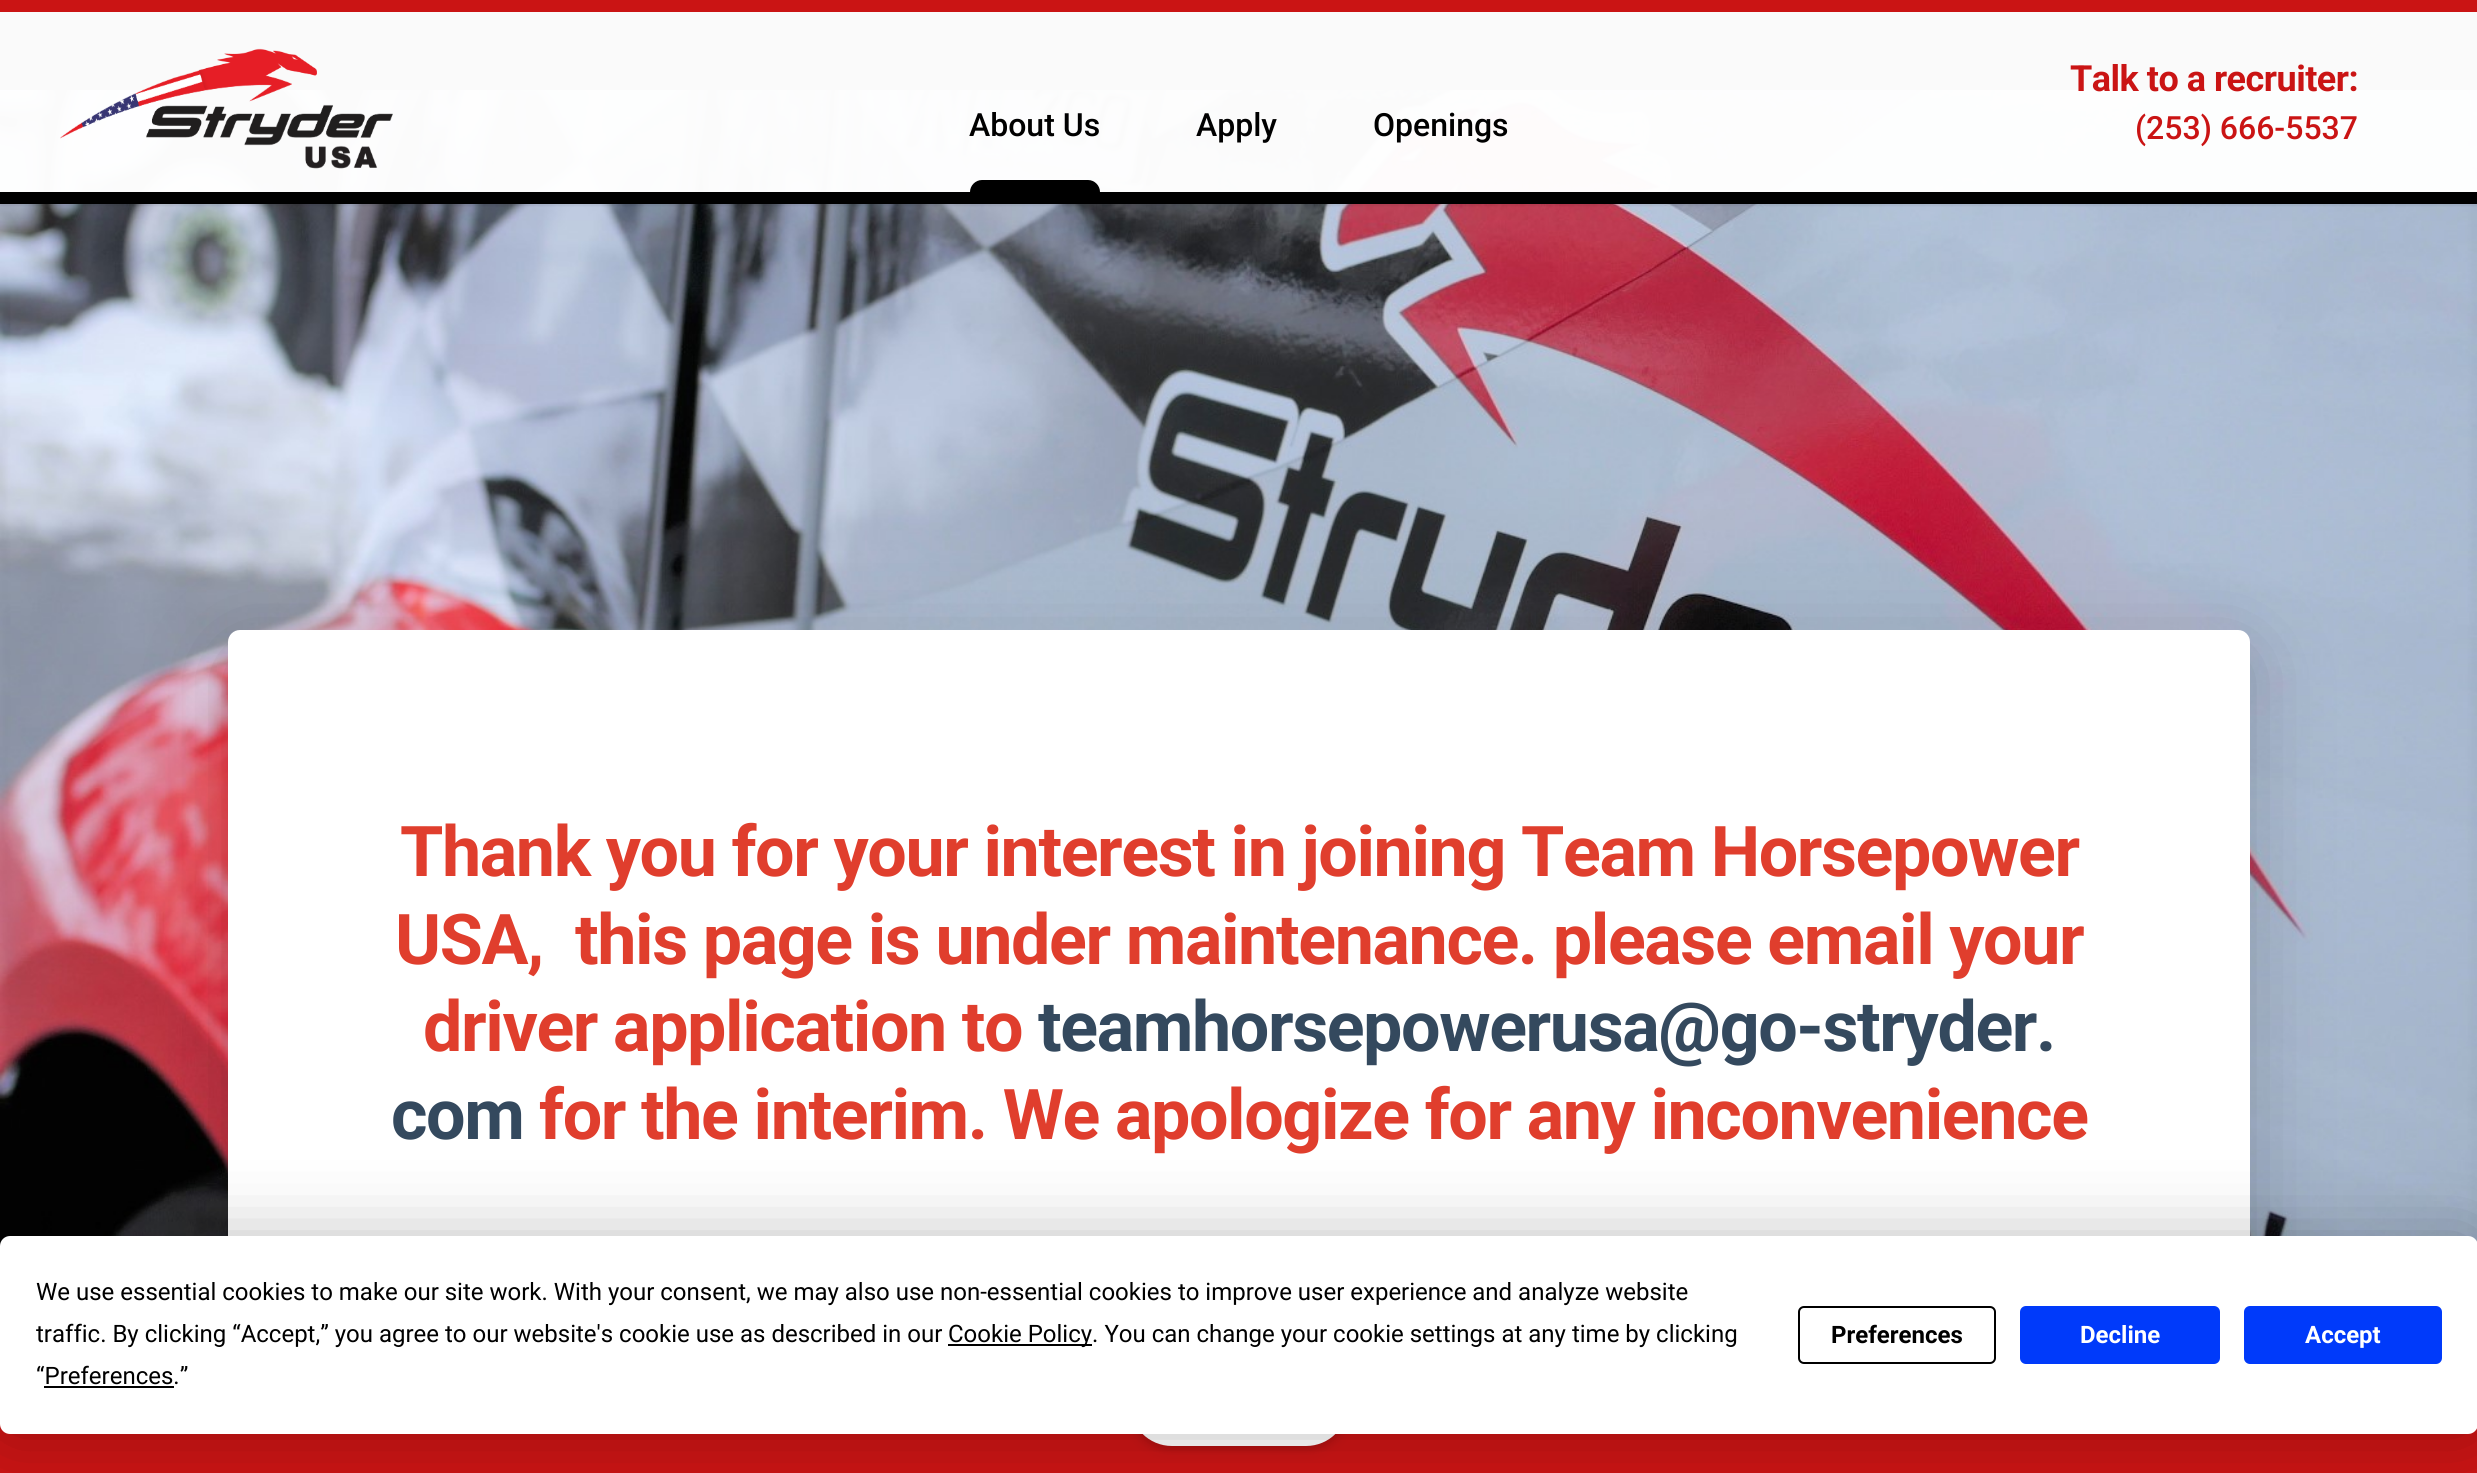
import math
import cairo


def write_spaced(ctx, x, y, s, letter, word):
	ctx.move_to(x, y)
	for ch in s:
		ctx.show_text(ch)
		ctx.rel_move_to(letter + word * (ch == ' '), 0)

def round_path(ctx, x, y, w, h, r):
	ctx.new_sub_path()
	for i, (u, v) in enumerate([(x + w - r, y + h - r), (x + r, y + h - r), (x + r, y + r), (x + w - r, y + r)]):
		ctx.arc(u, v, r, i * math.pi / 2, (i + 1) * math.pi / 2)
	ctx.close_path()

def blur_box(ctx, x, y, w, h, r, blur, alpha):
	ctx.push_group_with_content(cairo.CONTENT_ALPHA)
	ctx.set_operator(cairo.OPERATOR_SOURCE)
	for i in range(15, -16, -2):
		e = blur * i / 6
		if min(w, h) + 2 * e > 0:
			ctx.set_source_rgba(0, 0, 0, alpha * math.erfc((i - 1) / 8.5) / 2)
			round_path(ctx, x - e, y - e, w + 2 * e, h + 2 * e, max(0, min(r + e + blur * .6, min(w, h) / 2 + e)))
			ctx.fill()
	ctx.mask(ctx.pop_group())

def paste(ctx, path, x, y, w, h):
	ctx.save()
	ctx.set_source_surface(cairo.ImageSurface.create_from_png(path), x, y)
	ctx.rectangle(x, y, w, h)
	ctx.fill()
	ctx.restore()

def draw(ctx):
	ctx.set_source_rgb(0, 0, 0)
	ctx.paint()
	paste(ctx, 'media/2.png', 0, 90, 2477, 1156)
	ctx.save()
	ctx.rectangle(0, 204, 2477, 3)
	ctx.clip()
	blur_box(ctx, 0, 2, 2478, 204, 0, 1, 0.07)
	ctx.restore()
	ctx.set_source_rgba(1, 1, 1, 0.98)
	ctx.rectangle(0, 12, 2477, 180)
	ctx.fill()
	ctx.set_source_rgb(0.792, 0.082, 0.082)
	ctx.rectangle(0, 0, 2477, 12)
	ctx.fill()
	ctx.set_source_rgb(0, 0, 0)
	ctx.rectangle(0, 192, 2477, 12)
	ctx.fill()
	paste(ctx, 'media/1.png', 60, 48, 333, 121)
	ctx.select_font_face('Roboto Medium')
	ctx.set_font_size(32)
	ctx.move_to(969, 136)
	ctx.show_text('About Us')
	ctx.new_path()
	ctx.move_to(982, 180)
	ctx.line_to(1088, 180)
	ctx.curve_to(1094.5, 180, 1100, 185.5, 1100, 192)
	ctx.line_to(970, 192)
	ctx.curve_to(970, 185.5, 975.5, 180, 982, 180)
	ctx.close_path()
	ctx.fill()
	ctx.move_to(1196, 136)
	ctx.show_text('Apply')
	ctx.move_to(1373, 136)
	ctx.show_text('Openings')
	ctx.select_font_face('Roboto', cairo.FONT_SLANT_NORMAL, cairo.FONT_WEIGHT_BOLD)
	ctx.set_font_size(36)
	ctx.set_source_rgb(0.792, 0.082, 0.082)
	write_spaced(ctx, 2070, 91, 'Talk to a recruiter:', -0.5, 0)
	ctx.select_font_face('Roboto Medium')
	ctx.set_font_size(32)
	ctx.move_to(2135, 139)
	ctx.show_text('(253) 666-5537')
	ctx.set_source_rgb(0, 0, 0)
	blur_box(ctx, 228, 650, 2022, 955, 12, 40, 0.2)
	ctx.set_source_rgb(1, 1, 1)
	round_path(ctx, 228, 630, 2022, 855, 12)
	ctx.fill()
	ctx.select_font_face('Roboto', cairo.FONT_SLANT_NORMAL, cairo.FONT_WEIGHT_BOLD)
	ctx.set_font_size(70)
	ctx.set_source_rgb(0.878, 0.243, 0.176)
	for x, y, s in [
		(400, 876, 'Thank you for your interest in joining Team Horsepower'),
		(395, 964, 'USA,  this page is under maintenance. please email your'),
		(423, 1051, 'driver application to'),
	]:
		write_spaced(ctx, x, y, s, -1.4, 0)
	ctx.set_source_rgb(0.204, 0.286, 0.369)
	write_spaced(ctx, 1038, 1051, 'teamhorsepowerusa@go-stryder.', -1.4, 0)
	write_spaced(ctx, 391, 1139, 'com', -1.4, 0)
	ctx.set_source_rgb(0.878, 0.243, 0.176)
	write_spaced(ctx, 539, 1139, 'for the interim. We apologize for any inconvenience', -1.4, 0)
	ctx.set_source_rgb(0.792, 0.082, 0.082)
	ctx.rectangle(0, 1424, 2477, 49)
	ctx.fill()
	ctx.set_source_rgb(0, 0, 0)
	blur_box(ctx, 1130, 1366, 218, 84, 42, 6, 0.1)
	blur_box(ctx, 1130, 1364, 218, 84, 42, 4, 0.1)
	ctx.set_source_rgb(1, 1, 1)
	round_path(ctx, 1130, 1362, 218, 84, 42)
	ctx.fill()
	ctx.set_source_rgb(0, 0, 0)
	blur_box(ctx, 0, 1236, 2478, 198, 10, 35, 0.25)
	ctx.set_source_rgb(1, 1, 1)
	round_path(ctx, 0, 1236, 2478, 198, 10)
	ctx.fill()
	ctx.select_font_face('Roboto')
	ctx.set_font_size(24)
	ctx.set_source_rgb(0, 0, 0)
	ctx.move_to(36, 1300)
	ctx.show_text('We use essential cookies to make our site work. With your consent, we may also use non-essential cookies to improve user experience and analyze website')
	ctx.move_to(36, 1342)
	ctx.show_text('traffic. By clicking “Accept,” you agree to our website\'s cookie use as described in our')
	ctx.rectangle(948, 1344, 144, 2)
	ctx.fill()
	ctx.move_to(948, 1342)
	ctx.show_text('Cookie Policy. You can change your cookie settings at any time by clicking')
	ctx.move_to(36, 1384)
	ctx.show_text('“Preferences.”')
	ctx.rectangle(44, 1386, 130, 2)
	ctx.fill()
	round_path(ctx, 1799, 1307, 196, 56, 5)
	ctx.stroke()
	ctx.select_font_face('Roboto', cairo.FONT_SLANT_NORMAL, cairo.FONT_WEIGHT_BOLD)
	ctx.move_to(1831, 1343)
	ctx.show_text('Preferences')
	ctx.set_source_rgb(0, 0.227, 0.98)
	round_path(ctx, 2021, 1307, 198, 56, 5)
	ctx.fill_preserve()
	ctx.stroke()
	ctx.set_source_rgb(1, 1, 1)
	ctx.move_to(2080, 1343)
	ctx.show_text('Decline')
	ctx.set_source_rgb(0, 0.227, 0.98)
	round_path(ctx, 2245, 1307, 196, 56, 5)
	ctx.fill_preserve()
	ctx.stroke()
	ctx.set_source_rgb(1, 1, 1)
	ctx.move_to(2305, 1343)
	ctx.show_text('Accept')


surface = cairo.ImageSurface(cairo.FORMAT_RGB24, 2477, 1473)
ctx = cairo.Context(surface)
options = cairo.FontOptions()
options.set_hint_metrics(cairo.HINT_METRICS_OFF)
options.set_hint_style(cairo.HINT_STYLE_NONE)
ctx.set_font_options(options)
ctx.set_miter_limit(4)
draw(ctx)
surface.write_to_png('image.png')
